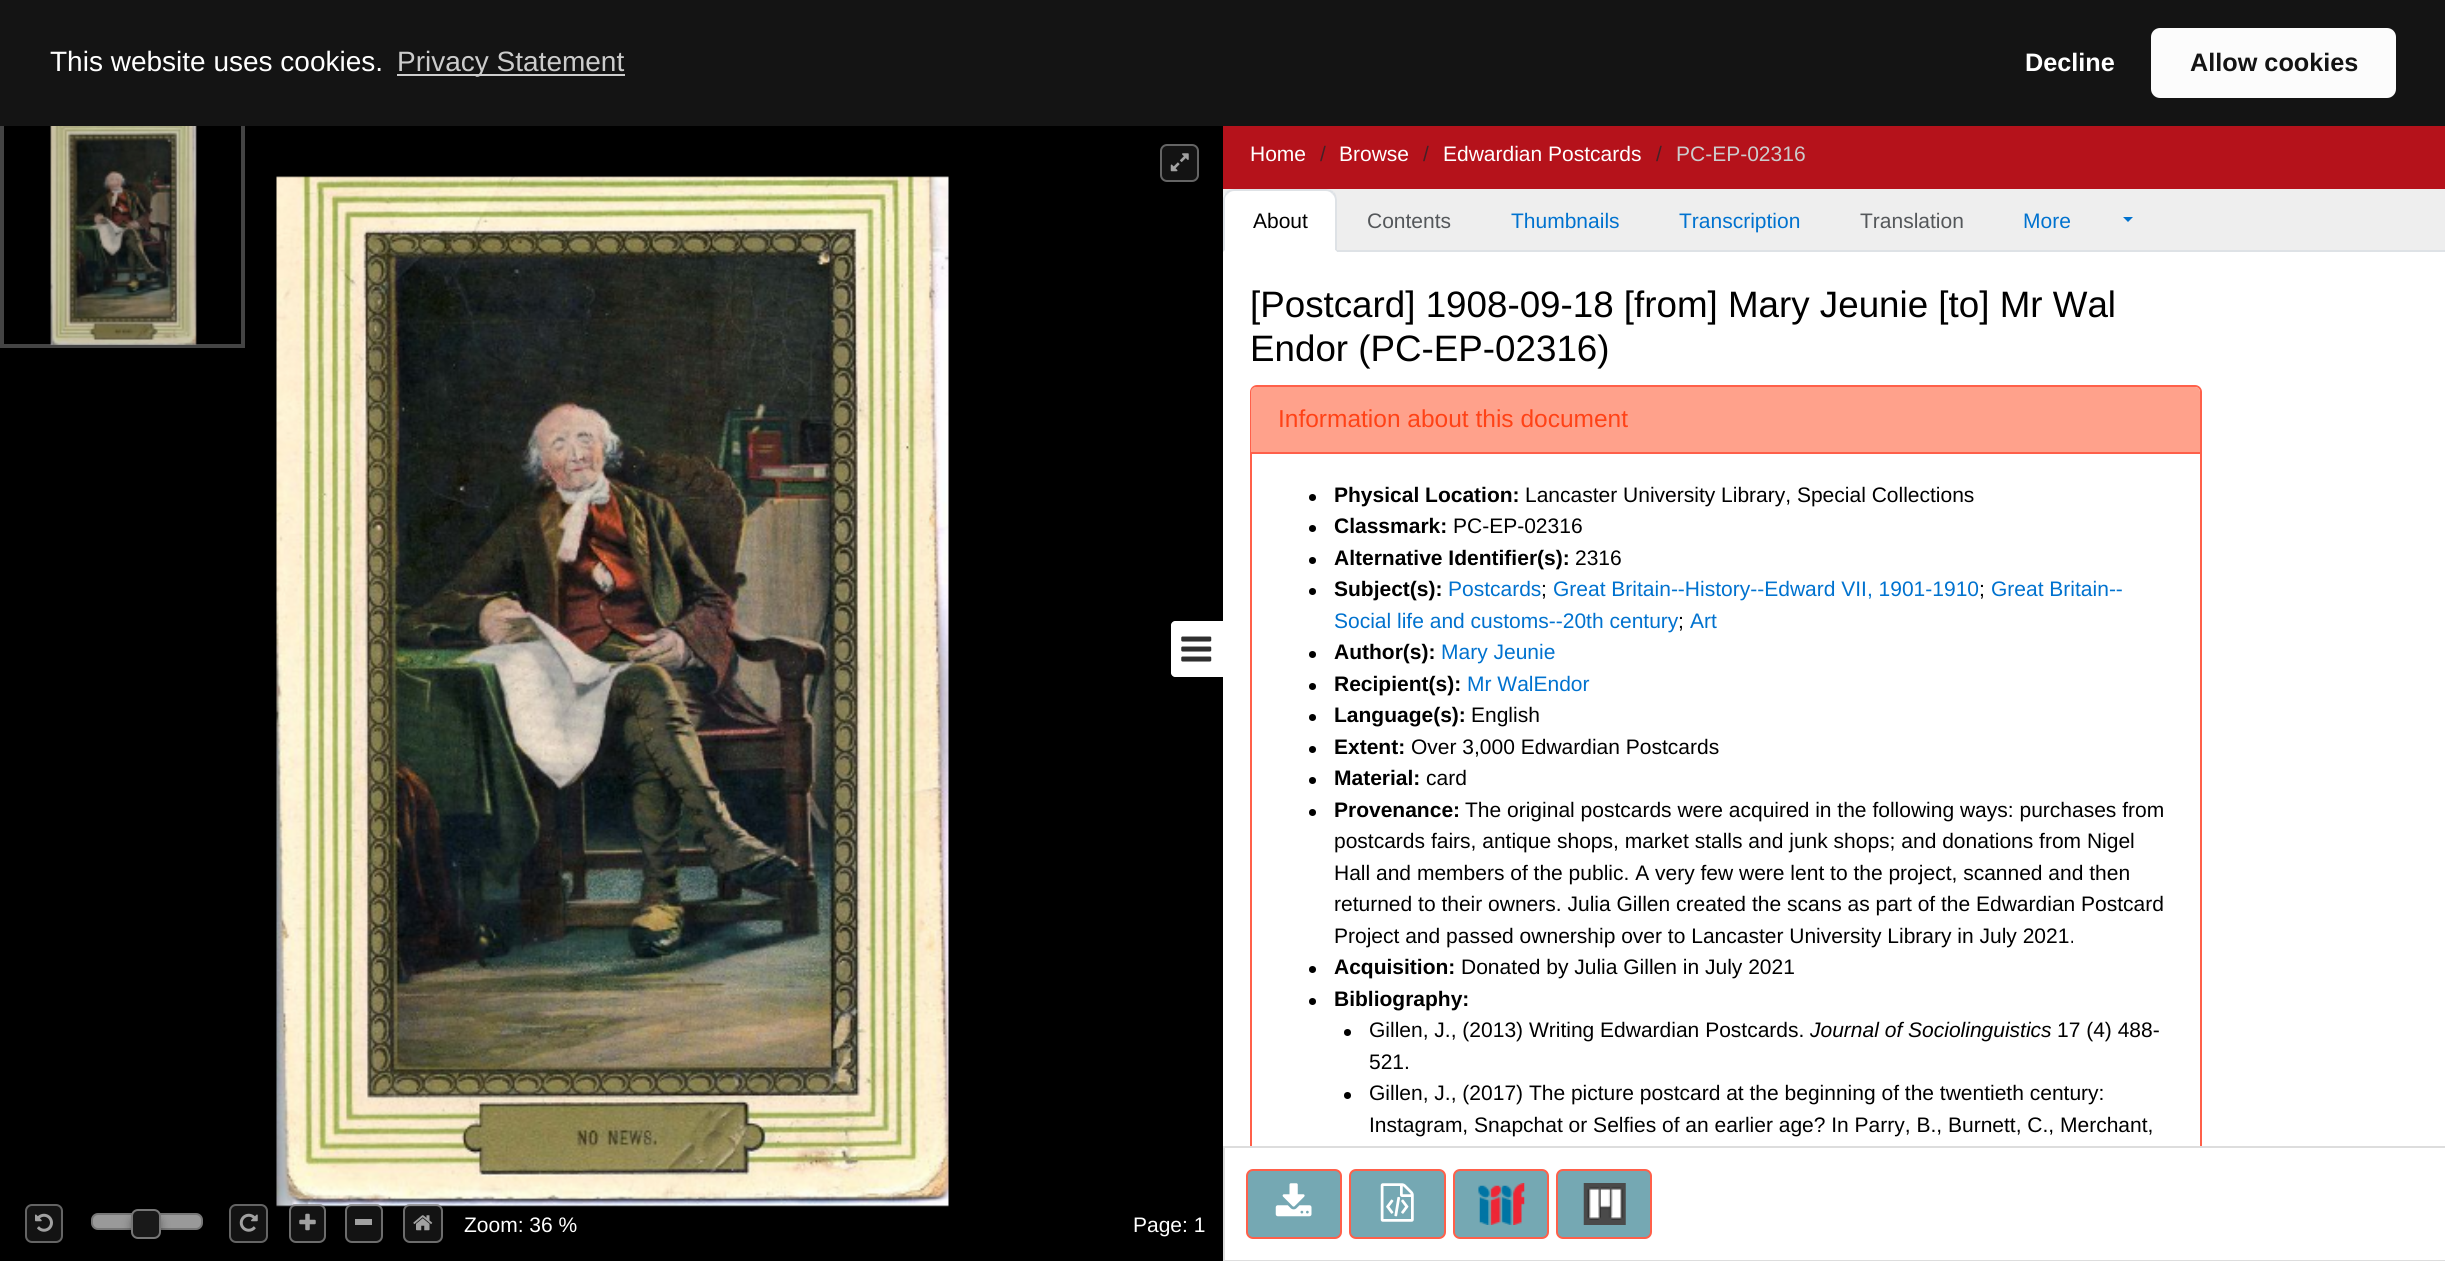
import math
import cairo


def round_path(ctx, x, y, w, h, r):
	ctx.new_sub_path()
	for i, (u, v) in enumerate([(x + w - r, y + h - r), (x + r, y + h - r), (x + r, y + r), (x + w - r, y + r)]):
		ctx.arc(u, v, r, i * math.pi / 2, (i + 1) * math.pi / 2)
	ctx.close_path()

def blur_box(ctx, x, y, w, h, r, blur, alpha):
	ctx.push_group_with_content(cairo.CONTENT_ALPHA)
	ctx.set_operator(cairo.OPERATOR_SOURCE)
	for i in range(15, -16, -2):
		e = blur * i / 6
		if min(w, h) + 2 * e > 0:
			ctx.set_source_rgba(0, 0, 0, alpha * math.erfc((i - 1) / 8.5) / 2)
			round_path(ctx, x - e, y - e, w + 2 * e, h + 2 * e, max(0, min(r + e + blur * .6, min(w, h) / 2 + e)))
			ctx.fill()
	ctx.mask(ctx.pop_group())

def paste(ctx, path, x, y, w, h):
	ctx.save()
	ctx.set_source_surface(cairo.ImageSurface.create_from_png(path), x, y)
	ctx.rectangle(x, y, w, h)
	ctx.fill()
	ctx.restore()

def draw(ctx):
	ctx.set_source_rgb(0, 0, 0)
	ctx.paint()
	ctx.rectangle(2, 121, 241, 225)
	ctx.set_source_rgb(0.267, 0.267, 0.267)
	ctx.set_line_width(4)
	ctx.stroke()
	ctx.set_source_rgb(0.082, 0.082, 0.082)
	ctx.rectangle(0, 0, 2445, 126)
	ctx.fill()
	ctx.select_font_face('Liberation Sans')
	ctx.set_font_size(28)
	ctx.set_source_rgb(1, 1, 1)
	ctx.move_to(50, 71)
	ctx.show_text('This website uses cookies.')
	ctx.set_source_rgb(0.808, 0.808, 0.808)
	ctx.rectangle(397, 74, 228, 2)
	ctx.fill()
	ctx.set_source_rgb(0.8, 0.8, 0.8)
	ctx.move_to(397, 71)
	ctx.show_text('Privacy Statement')
	ctx.select_font_face('Liberation Sans', cairo.FONT_SLANT_NORMAL, cairo.FONT_WEIGHT_BOLD)
	ctx.set_font_size(25.25)
	ctx.set_source_rgb(1, 1, 1)
	ctx.move_to(2025, 71)
	ctx.show_text('Decline')
	ctx.set_source_rgb(0.988, 0.988, 0.988)
	round_path(ctx, 2151, 28, 245, 70, 9)
	ctx.fill()
	ctx.set_source_rgb(0.082, 0.082, 0.082)
	ctx.move_to(2190, 71)
	ctx.show_text('Allow cookies')
	ctx.set_source_rgb(0.933, 0.933, 0.933)
	ctx.rectangle(1223, 189, 1222, 61)
	ctx.fill()
	ctx.set_source_rgb(0.71, 0.071, 0.106)
	ctx.rectangle(1223, 126, 1222, 63)
	ctx.fill()
	ctx.select_font_face('Liberation Sans')
	ctx.set_font_size(21)
	ctx.set_source_rgb(1, 1, 1)
	ctx.move_to(1250, 161)
	ctx.show_text('Home')
	ctx.set_source_rgb(0.275, 0.125, 0.149)
	ctx.move_to(1320, 161)
	ctx.show_text('/')
	ctx.set_source_rgb(1, 1, 1)
	ctx.move_to(1339, 161)
	ctx.show_text('Browse')
	ctx.set_source_rgb(0.275, 0.125, 0.149)
	ctx.move_to(1423, 161)
	ctx.show_text('/')
	ctx.set_source_rgb(1, 1, 1)
	ctx.move_to(1443, 161)
	ctx.show_text('Edwardian Postcards')
	ctx.set_source_rgb(0.275, 0.125, 0.149)
	ctx.move_to(1656, 161)
	ctx.show_text('/')
	ctx.set_source_rgb(0.8, 0.8, 0.8)
	ctx.move_to(1676, 161)
	ctx.show_text('PC-EP-02316')
	ctx.set_source_rgb(1, 1, 1)
	ctx.new_path()
	ctx.move_to(1175, 621)
	ctx.line_to(1223, 621)
	ctx.line_to(1223, 677)
	ctx.line_to(1175, 677)
	ctx.curve_to(1173, 677, 1171, 675, 1171, 673)
	ctx.line_to(1171, 625)
	ctx.curve_to(1171, 623, 1173, 621, 1175, 621)
	ctx.close_path()
	ctx.fill()
	paste(ctx, 'media/1.png', 1181, 636, 31, 26)
	ctx.set_source_rgb(0.871, 0.886, 0.902)
	ctx.rectangle(1337, 250, 1108, 2)
	ctx.fill()
	ctx.set_source_rgb(1, 1, 1)
	ctx.new_path()
	ctx.move_to(1234, 189)
	ctx.line_to(1326, 189)
	ctx.curve_to(1332, 189, 1337, 194, 1337, 200)
	ctx.line_to(1337, 252)
	ctx.line_to(1223, 252)
	ctx.line_to(1223, 200)
	ctx.curve_to(1223, 194, 1228, 189, 1234, 189)
	ctx.close_path()
	ctx.fill()
	ctx.set_source_rgb(0.871, 0.886, 0.902)
	ctx.new_path()
	ctx.move_to(1234, 189)
	ctx.curve_to(1231, 189, 1228, 190, 1226, 192)
	ctx.line_to(1228, 194)
	ctx.curve_to(1229, 192, 1232, 191, 1234, 191)
	ctx.line_to(1326, 191)
	ctx.curve_to(1328, 191, 1331, 192, 1332, 194)
	ctx.line_to(1334, 192)
	ctx.curve_to(1332, 190, 1329, 189, 1326, 189)
	ctx.close_path()
	ctx.fill()
	ctx.new_path()
	ctx.move_to(1337, 252)
	ctx.line_to(1337, 200)
	ctx.curve_to(1337, 197, 1336, 194, 1334, 192)
	ctx.line_to(1332, 194)
	ctx.curve_to(1334, 195, 1335, 198, 1335, 200)
	ctx.line_to(1335, 250)
	ctx.close_path()
	ctx.fill()
	ctx.set_source_rgb(1, 1, 1)
	ctx.new_path()
	ctx.move_to(1337, 252)
	ctx.line_to(1335, 250)
	ctx.line_to(1225, 250)
	ctx.line_to(1223, 252)
	ctx.close_path()
	ctx.fill()
	ctx.set_source_rgb(0.871, 0.886, 0.902)
	ctx.new_path()
	ctx.move_to(1223, 252)
	ctx.line_to(1223, 198)
	ctx.curve_to(1224, 196, 1225, 194, 1226, 192)
	ctx.line_to(1228, 194)
	ctx.curve_to(1226, 195, 1225, 197, 1225, 200)
	ctx.line_to(1225, 250)
	ctx.close_path()
	ctx.fill()
	ctx.set_source_rgb(0, 0, 0)
	ctx.move_to(1253, 228)
	ctx.show_text('About')
	ctx.set_source_rgb(0.329, 0.341, 0.353)
	ctx.move_to(1367, 228)
	ctx.show_text('Contents')
	ctx.set_source_rgb(0, 0.447, 0.812)
	ctx.move_to(1511, 228)
	ctx.show_text('Thumbnails')
	ctx.move_to(1679, 228)
	ctx.show_text('Transcription')
	ctx.set_source_rgb(0.329, 0.341, 0.353)
	ctx.move_to(1860, 228)
	ctx.show_text('Translation')
	ctx.set_source_rgb(0, 0.447, 0.812)
	ctx.move_to(2023, 228)
	ctx.show_text('More')
	ctx.new_path()
	ctx.move_to(2123, 217)
	ctx.line_to(2133, 217)
	ctx.line_to(2128, 222)
	ctx.close_path()
	ctx.fill()
	ctx.set_source_rgb(1, 1, 1)
	ctx.rectangle(1223, 252, 1222, 894)
	ctx.fill()
	ctx.set_font_size(36.75)
	ctx.set_source_rgb(0, 0, 0)
	ctx.move_to(1250, 317)
	ctx.show_text('[Postcard] 1908-09-18 [from] Mary Jeunie [to] Mr Wal')
	ctx.move_to(1250, 361)
	ctx.show_text('Endor (PC-EP-02316)')
	ctx.set_source_rgb(1, 1, 1)
	ctx.rectangle(1224, 1147, 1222, 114)
	ctx.fill_preserve()
	ctx.set_source_rgb(0.867, 0.867, 0.867)
	ctx.set_line_width(2)
	ctx.stroke()
	ctx.save()
	ctx.rectangle(1223, 252, 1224, 894)
	ctx.clip()
	round_path(ctx, 1251, 386, 950, 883, 6)
	ctx.set_source_rgb(1, 0.376, 0.29)
	ctx.stroke()
	ctx.restore()
	ctx.set_source_rgb(1, 0.631, 0.545)
	ctx.new_path()
	ctx.move_to(1256, 387)
	ctx.line_to(2195, 387)
	ctx.curve_to(2198, 387, 2200, 389, 2200, 392)
	ctx.line_to(2200, 453)
	ctx.line_to(1251, 453)
	ctx.line_to(1251, 392)
	ctx.curve_to(1251, 389, 1253, 387, 1256, 387)
	ctx.close_path()
	ctx.fill()
	ctx.set_source_rgb(1, 0.376, 0.29)
	ctx.rectangle(1251, 452, 949, 2)
	ctx.fill()
	ctx.set_font_size(24.5)
	ctx.set_source_rgb(1, 0.259, 0.086)
	ctx.move_to(1278, 427)
	ctx.show_text('Information about this document')
	ctx.set_source_rgb(0, 0, 0)
	ctx.new_path()
	ctx.arc(1312.5, 497.5, 3.5, 0, 2 * math.pi)
	ctx.fill()
	ctx.select_font_face('Liberation Sans', cairo.FONT_SLANT_NORMAL, cairo.FONT_WEIGHT_BOLD)
	ctx.set_font_size(21)
	ctx.move_to(1334, 502)
	ctx.show_text('Physical Location:')
	ctx.select_font_face('Liberation Sans')
	ctx.move_to(1525, 502)
	ctx.show_text('Lancaster University Library, Special Collections')
	ctx.new_path()
	ctx.arc(1312.5, 528.5, 3.5, 0, 2 * math.pi)
	ctx.fill()
	ctx.select_font_face('Liberation Sans', cairo.FONT_SLANT_NORMAL, cairo.FONT_WEIGHT_BOLD)
	ctx.move_to(1334, 533)
	ctx.show_text('Classmark:')
	ctx.select_font_face('Liberation Sans')
	ctx.move_to(1453, 533)
	ctx.show_text('PC-EP-02316')
	ctx.new_path()
	ctx.arc(1312.5, 560.5, 3.5, 0, 2 * math.pi)
	ctx.fill()
	ctx.select_font_face('Liberation Sans', cairo.FONT_SLANT_NORMAL, cairo.FONT_WEIGHT_BOLD)
	ctx.move_to(1334, 565)
	ctx.show_text('Alternative Identifier(s):')
	ctx.select_font_face('Liberation Sans')
	ctx.move_to(1575, 565)
	ctx.show_text('2316')
	ctx.new_path()
	ctx.arc(1312.5, 591.5, 3.5, 0, 2 * math.pi)
	ctx.fill()
	ctx.select_font_face('Liberation Sans', cairo.FONT_SLANT_NORMAL, cairo.FONT_WEIGHT_BOLD)
	ctx.move_to(1334, 596)
	ctx.show_text('Subject(s):')
	ctx.select_font_face('Liberation Sans')
	ctx.set_source_rgb(0, 0.447, 0.812)
	ctx.move_to(1448, 596)
	ctx.show_text('Postcards')
	ctx.set_source_rgb(0, 0, 0)
	ctx.move_to(1541, 596)
	ctx.show_text(';')
	ctx.set_source_rgb(0, 0.447, 0.812)
	ctx.move_to(1553, 596)
	ctx.show_text('Great Britain--History--Edward VII, 1901-1910')
	ctx.set_source_rgb(0, 0, 0)
	ctx.move_to(1979, 596)
	ctx.show_text(';')
	ctx.set_source_rgb(0, 0.447, 0.812)
	ctx.move_to(1991, 596)
	ctx.show_text('Great Britain--')
	ctx.move_to(1334, 628)
	ctx.show_text('Social life and customs--20th century')
	ctx.set_source_rgb(0, 0, 0)
	ctx.move_to(1678, 628)
	ctx.show_text(';')
	ctx.set_source_rgb(0, 0.447, 0.812)
	ctx.move_to(1690, 628)
	ctx.show_text('Art')
	ctx.set_source_rgb(0, 0, 0)
	ctx.new_path()
	ctx.arc(1312.5, 654.5, 3.5, 0, 2 * math.pi)
	ctx.fill()
	ctx.select_font_face('Liberation Sans', cairo.FONT_SLANT_NORMAL, cairo.FONT_WEIGHT_BOLD)
	ctx.move_to(1334, 659)
	ctx.show_text('Author(s):')
	ctx.select_font_face('Liberation Sans')
	ctx.set_source_rgb(0, 0.447, 0.812)
	ctx.move_to(1441, 659)
	ctx.show_text('Mary Jeunie')
	ctx.set_source_rgb(0, 0, 0)
	ctx.new_path()
	ctx.arc(1312.5, 686.5, 3.5, 0, 2 * math.pi)
	ctx.fill()
	ctx.select_font_face('Liberation Sans', cairo.FONT_SLANT_NORMAL, cairo.FONT_WEIGHT_BOLD)
	ctx.move_to(1334, 691)
	ctx.show_text('Recipient(s):')
	ctx.select_font_face('Liberation Sans')
	ctx.set_source_rgb(0, 0.447, 0.812)
	ctx.move_to(1467, 691)
	ctx.show_text('Mr WalEndor')
	ctx.set_source_rgb(0, 0, 0)
	ctx.new_path()
	ctx.arc(1312.5, 717.5, 3.5, 0, 2 * math.pi)
	ctx.fill()
	ctx.select_font_face('Liberation Sans', cairo.FONT_SLANT_NORMAL, cairo.FONT_WEIGHT_BOLD)
	ctx.move_to(1334, 722)
	ctx.show_text('Language(s):')
	ctx.select_font_face('Liberation Sans')
	ctx.move_to(1471, 722)
	ctx.show_text('English')
	ctx.new_path()
	ctx.arc(1312.5, 749.5, 3.5, 0, 2 * math.pi)
	ctx.fill()
	ctx.select_font_face('Liberation Sans', cairo.FONT_SLANT_NORMAL, cairo.FONT_WEIGHT_BOLD)
	ctx.move_to(1334, 754)
	ctx.show_text('Extent:')
	ctx.select_font_face('Liberation Sans')
	ctx.move_to(1411, 754)
	ctx.show_text('Over 3,000 Edwardian Postcards')
	ctx.new_path()
	ctx.arc(1312.5, 780.5, 3.5, 0, 2 * math.pi)
	ctx.fill()
	ctx.select_font_face('Liberation Sans', cairo.FONT_SLANT_NORMAL, cairo.FONT_WEIGHT_BOLD)
	ctx.move_to(1334, 785)
	ctx.show_text('Material:')
	ctx.select_font_face('Liberation Sans')
	ctx.move_to(1426, 785)
	ctx.show_text('card')
	ctx.new_path()
	ctx.arc(1312.5, 812.5, 3.5, 0, 2 * math.pi)
	ctx.fill()
	ctx.select_font_face('Liberation Sans', cairo.FONT_SLANT_NORMAL, cairo.FONT_WEIGHT_BOLD)
	ctx.move_to(1334, 817)
	ctx.show_text('Provenance:')
	ctx.select_font_face('Liberation Sans')
	for x, y, s in [
		(1465, 817, 'The original postcards were acquired in the following ways: purchases from'),
		(1334, 848, 'postcards fairs, antique shops, market stalls and junk shops; and donations from Nigel'),
		(1334, 880, 'Hall and members of the public. A very few were lent to the project, scanned and then'),
		(1334, 911, 'returned to their owners. Julia Gillen created the scans as part of the Edwardian Postcard'),
		(1334, 943, 'Project and passed ownership over to Lancaster University Library in July 2021.'),
	]:
		ctx.move_to(x, y)
		ctx.show_text(s)
	ctx.new_path()
	ctx.arc(1312.5, 969.5, 3.5, 0, 2 * math.pi)
	ctx.fill()
	ctx.select_font_face('Liberation Sans', cairo.FONT_SLANT_NORMAL, cairo.FONT_WEIGHT_BOLD)
	ctx.move_to(1334, 974)
	ctx.show_text('Acquisition:')
	ctx.select_font_face('Liberation Sans')
	ctx.move_to(1461, 974)
	ctx.show_text('Donated by Julia Gillen in July 2021')
	ctx.new_path()
	ctx.arc(1312.5, 1001.5, 3.5, 0, 2 * math.pi)
	ctx.fill()
	ctx.select_font_face('Liberation Sans', cairo.FONT_SLANT_NORMAL, cairo.FONT_WEIGHT_BOLD)
	ctx.move_to(1334, 1006)
	ctx.show_text('Bibliography:')
	ctx.new_path()
	ctx.arc(1347.5, 1032.5, 3.5, 0, 2 * math.pi)
	ctx.fill()
	ctx.select_font_face('Liberation Sans')
	ctx.move_to(1369, 1037)
	ctx.show_text('Gillen, J., (2013) Writing Edwardian Postcards.')
	ctx.select_font_face('Liberation Sans', cairo.FONT_SLANT_ITALIC)
	ctx.move_to(1810, 1037)
	ctx.show_text('Journal of Sociolinguistics')
	ctx.select_font_face('Liberation Sans')
	ctx.move_to(2057, 1037)
	ctx.show_text('17 (4) 488-')
	ctx.move_to(1369, 1069)
	ctx.show_text('521.')
	ctx.new_path()
	ctx.arc(1347.5, 1095.5, 3.5, 0, 2 * math.pi)
	ctx.fill()
	ctx.move_to(1369, 1100)
	ctx.show_text('Gillen, J., (2017) The picture postcard at the beginning of the twentieth century:')
	ctx.move_to(1369, 1132)
	ctx.show_text('Instagram, Snapchat or Selfies of an earlier age? In Parry, B., Burnett, C., Merchant,')
	ctx.set_source_rgb(0.459, 0.659, 0.702)
	round_path(ctx, 1247, 1170, 94, 68, 6)
	ctx.fill_preserve()
	ctx.set_source_rgb(1, 0.376, 0.29)
	ctx.stroke()
	paste(ctx, 'media/2.png', 1275, 1183, 37, 34)
	ctx.set_source_rgb(0.459, 0.659, 0.702)
	round_path(ctx, 1350, 1170, 95, 68, 6)
	ctx.fill_preserve()
	ctx.set_source_rgb(1, 0.376, 0.29)
	ctx.stroke()
	paste(ctx, 'media/3.png', 1380, 1183, 34, 39)
	ctx.set_source_rgb(0.459, 0.659, 0.702)
	round_path(ctx, 1454, 1170, 94, 68, 6)
	ctx.fill_preserve()
	ctx.set_source_rgb(1, 0.376, 0.29)
	ctx.stroke()
	paste(ctx, 'media/4.png', 1478, 1183, 47, 42)
	ctx.set_source_rgb(0.459, 0.659, 0.702)
	round_path(ctx, 1557, 1170, 94, 68, 6)
	ctx.fill_preserve()
	ctx.set_source_rgb(1, 0.376, 0.29)
	ctx.stroke()
	paste(ctx, 'media/5.png', 1583, 1183, 43, 42)
	paste(ctx, 'media/6.png', 50, 126, 147, 219)
	paste(ctx, 'media/7.png', 276, 176, 673, 1031)
	ctx.set_source_rgb(0.078, 0.078, 0.078)
	round_path(ctx, 1161, 145, 37, 36, 6)
	ctx.fill_preserve()
	ctx.set_source_rgb(0.392, 0.392, 0.392)
	ctx.stroke()
	paste(ctx, 'media/8.png', 1170, 153, 19, 19)
	ctx.set_source_rgb(0.078, 0.078, 0.078)
	round_path(ctx, 26, 1205, 36, 37, 6)
	ctx.fill_preserve()
	ctx.set_source_rgb(0.392, 0.392, 0.392)
	ctx.stroke()
	paste(ctx, 'media/9.png', 35, 1213, 18, 19)
	ctx.set_source_rgb(0.6, 0.6, 0.6)
	round_path(ctx, 92, 1214, 110, 15, 6)
	ctx.fill_preserve()
	ctx.set_source_rgb(0.463, 0.463, 0.463)
	ctx.stroke()
	ctx.set_source_rgb(0, 0, 0)
	blur_box(ctx, 131, 1216, 30, 30, 7, 4.5, 0.35)
	ctx.set_source_rgb(0.098, 0.098, 0.098)
	round_path(ctx, 132, 1210, 28, 28, 6)
	ctx.fill_preserve()
	ctx.set_source_rgb(0.463, 0.463, 0.463)
	ctx.stroke()
	ctx.set_source_rgb(0.078, 0.078, 0.078)
	round_path(ctx, 230, 1205, 37, 37, 6)
	ctx.fill_preserve()
	ctx.set_source_rgb(0.392, 0.392, 0.392)
	ctx.stroke()
	paste(ctx, 'media/10.png', 239, 1213, 19, 19)
	ctx.set_source_rgba(0.161, 0.161, 0.161, 0.48)
	round_path(ctx, 289, 1204, 37, 39, 7)
	ctx.fill()
	round_path(ctx, 290, 1205, 35, 37, 6)
	ctx.set_source_rgba(0.655, 0.655, 0.655, 0.6)
	ctx.stroke()
	paste(ctx, 'media/11.png', 299, 1213, 17, 18)
	ctx.set_source_rgba(0.161, 0.161, 0.161, 0.48)
	round_path(ctx, 345, 1204, 38, 39, 7)
	ctx.fill()
	round_path(ctx, 346, 1205, 36, 37, 6)
	ctx.set_source_rgba(0.655, 0.655, 0.655, 0.6)
	ctx.stroke()
	ctx.set_source_rgb(0.631, 0.631, 0.631)
	ctx.rectangle(355, 1219, 17, 6)
	ctx.fill()
	ctx.set_source_rgba(0.161, 0.161, 0.161, 0.48)
	round_path(ctx, 403, 1204, 40, 39, 7)
	ctx.fill()
	round_path(ctx, 404, 1205, 38, 37, 6)
	ctx.set_source_rgba(0.655, 0.655, 0.655, 0.6)
	ctx.stroke()
	paste(ctx, 'media/12.png', 413, 1215, 20, 16)
	ctx.set_source_rgb(1, 1, 1)
	ctx.move_to(464, 1232)
	ctx.show_text('Zoom: 36 %')
	ctx.move_to(1133, 1232)
	ctx.show_text('Page: 1')


surface = cairo.ImageSurface(cairo.FORMAT_RGB24, 2445, 1261)
ctx = cairo.Context(surface)
options = cairo.FontOptions()
options.set_hint_metrics(cairo.HINT_METRICS_OFF)
options.set_hint_style(cairo.HINT_STYLE_NONE)
ctx.set_font_options(options)
ctx.set_miter_limit(4)
draw(ctx)
surface.write_to_png('image.png')
